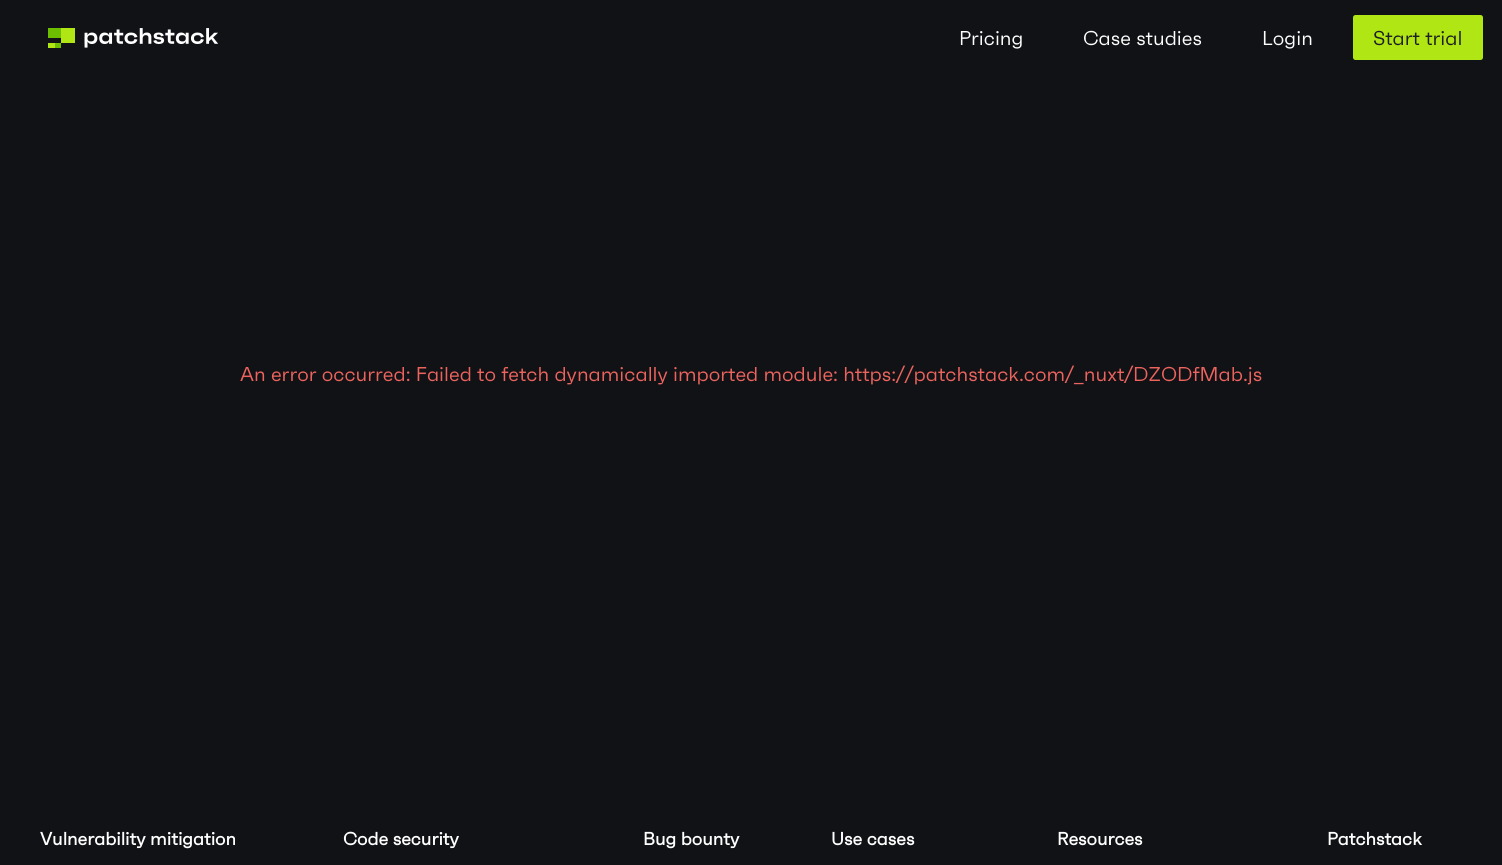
import math
import cairo


def round_path(ctx, x, y, w, h, r):
	ctx.new_sub_path()
	for i, (u, v) in enumerate([(x + w - r, y + h - r), (x + r, y + h - r), (x + r, y + r), (x + w - r, y + r)]):
		ctx.arc(u, v, r, i * math.pi / 2, (i + 1) * math.pi / 2)
	ctx.close_path()

def paste(ctx, path, x, y, w, h):
	ctx.save()
	ctx.set_source_surface(cairo.ImageSurface.create_from_png(path), x, y)
	ctx.rectangle(x, y, w, h)
	ctx.fill()
	ctx.restore()

def draw(ctx):
	ctx.set_source_rgb(0.067, 0.071, 0.086)
	ctx.paint()
	paste(ctx, 'media/1.png', 48, 28, 170, 20)
	ctx.select_font_face('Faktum')
	ctx.set_font_size(20)
	ctx.set_source_rgb(1, 1, 1)
	for x, y, s in [
		(959, 45, 'Pricing'),
		(1083, 45, 'Case studies'),
		(1262, 45, 'Login'),
	]:
		ctx.move_to(x, y)
		ctx.show_text(s)
	ctx.set_source_rgb(0.686, 0.902, 0.078)
	round_path(ctx, 1353, 15, 130, 45, 2.5)
	ctx.fill()
	ctx.set_source_rgb(0.11, 0.118, 0.133)
	ctx.move_to(1373, 45)
	ctx.show_text('Start trial')
	ctx.set_source_rgb(0.929, 0.392, 0.369)
	ctx.move_to(240, 381)
	ctx.show_text('An error occurred: Failed to fetch dynamically imported module: https://patchstack.com/_nuxt/DZODfMab.js')
	ctx.select_font_face('Faktum', cairo.FONT_SLANT_NORMAL, cairo.FONT_WEIGHT_BOLD)
	ctx.set_font_size(18)
	ctx.set_source_rgb(1, 1, 1)
	for x, y, s in [
		(40, 845, 'Vulnerability mitigation'),
		(343, 845, 'Code security'),
		(643, 845, 'Bug bounty'),
		(831, 845, 'Use cases'),
		(1057, 845, 'Resources'),
		(1327, 845, 'Patchstack'),
	]:
		ctx.move_to(x, y)
		ctx.show_text(s)


surface = cairo.ImageSurface(cairo.FORMAT_RGB24, 1502, 865)
ctx = cairo.Context(surface)
options = cairo.FontOptions()
options.set_hint_metrics(cairo.HINT_METRICS_OFF)
options.set_hint_style(cairo.HINT_STYLE_NONE)
ctx.set_font_options(options)
ctx.set_miter_limit(4)
draw(ctx)
surface.write_to_png('image.png')
